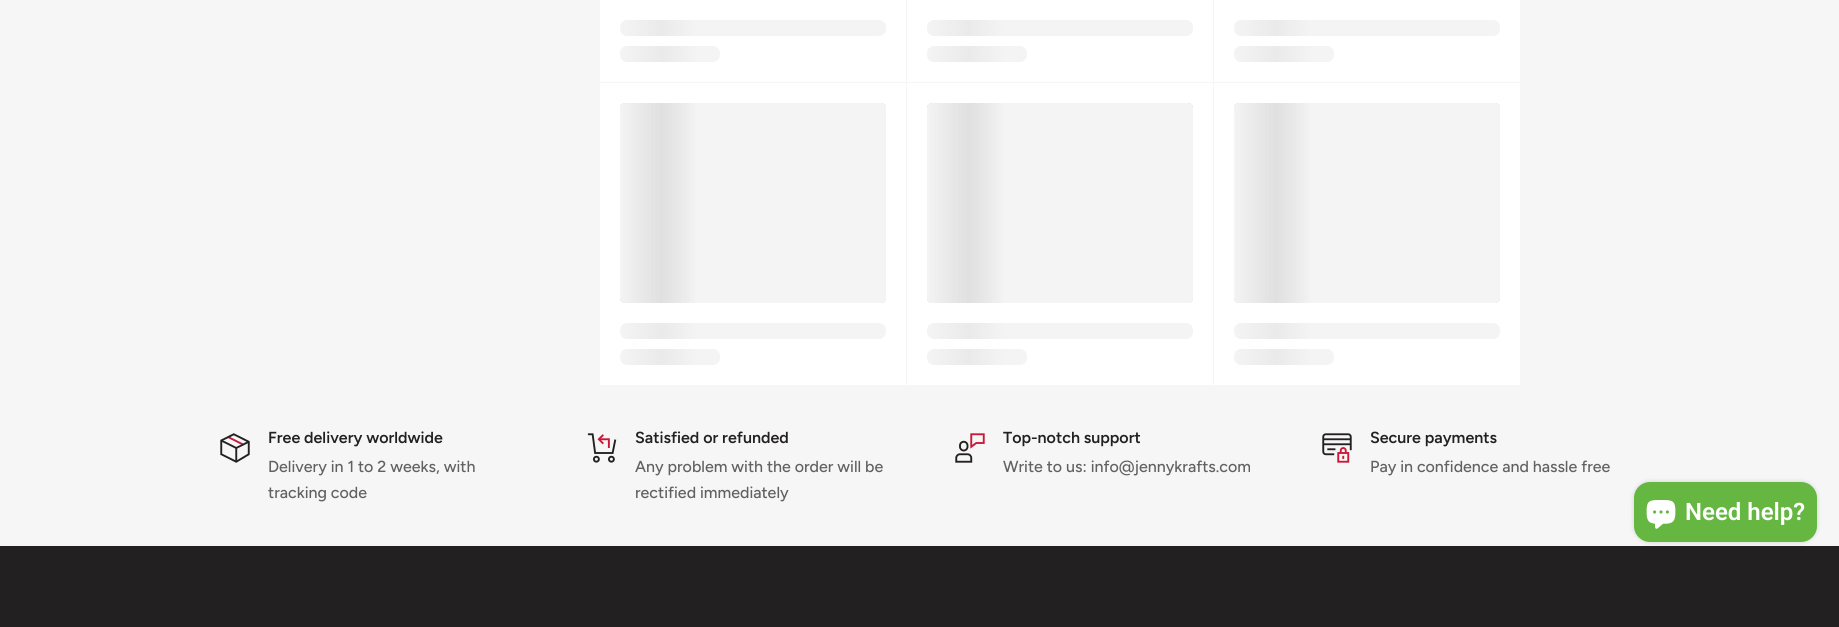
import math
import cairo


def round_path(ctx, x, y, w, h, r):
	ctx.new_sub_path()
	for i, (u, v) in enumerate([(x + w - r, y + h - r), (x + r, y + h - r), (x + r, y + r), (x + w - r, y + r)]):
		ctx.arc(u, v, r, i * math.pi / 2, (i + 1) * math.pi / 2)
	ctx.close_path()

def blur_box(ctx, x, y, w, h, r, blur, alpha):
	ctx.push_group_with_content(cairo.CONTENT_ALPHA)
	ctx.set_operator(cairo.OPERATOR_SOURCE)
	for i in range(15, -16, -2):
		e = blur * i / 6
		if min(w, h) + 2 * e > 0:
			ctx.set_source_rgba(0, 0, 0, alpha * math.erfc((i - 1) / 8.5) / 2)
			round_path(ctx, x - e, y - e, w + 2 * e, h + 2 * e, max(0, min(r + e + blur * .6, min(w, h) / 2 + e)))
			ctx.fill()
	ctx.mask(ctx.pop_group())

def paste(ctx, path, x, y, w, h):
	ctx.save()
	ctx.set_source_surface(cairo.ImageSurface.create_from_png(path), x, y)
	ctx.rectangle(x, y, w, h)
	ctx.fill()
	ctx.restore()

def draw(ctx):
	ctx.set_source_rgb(0.961, 0.961, 0.961)
	ctx.paint()
	ctx.set_source_rgb(1, 1, 1)
	ctx.rectangle(600, 0, 306, 82)
	ctx.fill()
	gradient = cairo.LinearGradient(620, 28, 1220, 28)
	gradient.add_color_stop_rgba(0, 0.957, 0.957, 0.957, 1)
	gradient.add_color_stop_rgba(0.07, 0.918, 0.918, 0.918, 1)
	gradient.add_color_stop_rgba(0.13, 0.957, 0.957, 0.957, 1)
	ctx.set_source(gradient)
	round_path(ctx, 620, 20, 266, 16, 7)
	ctx.fill()
	gradient = cairo.LinearGradient(620, 54, 1220, 54)
	gradient.add_color_stop_rgba(0, 0.957, 0.957, 0.957, 1)
	gradient.add_color_stop_rgba(0.07, 0.918, 0.918, 0.918, 1)
	gradient.add_color_stop_rgba(0.13, 0.957, 0.957, 0.957, 1)
	ctx.set_source(gradient)
	round_path(ctx, 620, 46, 100, 16, 7)
	ctx.fill()
	ctx.set_source_rgb(1, 1, 1)
	ctx.rectangle(907, 0, 306, 82)
	ctx.fill()
	gradient = cairo.LinearGradient(927, 28, 1527, 28)
	gradient.add_color_stop_rgba(0, 0.957, 0.957, 0.957, 1)
	gradient.add_color_stop_rgba(0.07, 0.918, 0.918, 0.918, 1)
	gradient.add_color_stop_rgba(0.13, 0.957, 0.957, 0.957, 1)
	ctx.set_source(gradient)
	round_path(ctx, 927, 20, 266, 16, 7)
	ctx.fill()
	gradient = cairo.LinearGradient(927, 54, 1527, 54)
	gradient.add_color_stop_rgba(0, 0.957, 0.957, 0.957, 1)
	gradient.add_color_stop_rgba(0.07, 0.918, 0.918, 0.918, 1)
	gradient.add_color_stop_rgba(0.13, 0.957, 0.957, 0.957, 1)
	ctx.set_source(gradient)
	round_path(ctx, 927, 46, 100, 16, 7)
	ctx.fill()
	ctx.set_source_rgb(1, 1, 1)
	ctx.rectangle(1214, 0, 306, 82)
	ctx.fill()
	gradient = cairo.LinearGradient(1234, 28, 1834, 28)
	gradient.add_color_stop_rgba(0, 0.957, 0.957, 0.957, 1)
	gradient.add_color_stop_rgba(0.07, 0.918, 0.918, 0.918, 1)
	gradient.add_color_stop_rgba(0.13, 0.957, 0.957, 0.957, 1)
	ctx.set_source(gradient)
	round_path(ctx, 1234, 20, 266, 16, 7)
	ctx.fill()
	gradient = cairo.LinearGradient(1234, 54, 1834, 54)
	gradient.add_color_stop_rgba(0, 0.957, 0.957, 0.957, 1)
	gradient.add_color_stop_rgba(0.07, 0.918, 0.918, 0.918, 1)
	gradient.add_color_stop_rgba(0.13, 0.957, 0.957, 0.957, 1)
	ctx.set_source(gradient)
	round_path(ctx, 1234, 46, 100, 16, 7)
	ctx.fill()
	ctx.set_source_rgb(1, 1, 1)
	ctx.rectangle(600, 83, 306, 302)
	ctx.fill()
	ctx.set_source_rgb(0.8, 0.8, 0.8)
	round_path(ctx, 620, 103, 266, 200, 5)
	ctx.fill()
	gradient = cairo.LinearGradient(620, 203, 1220, 203)
	gradient.add_color_stop_rgba(0, 0.957, 0.957, 0.957, 1)
	gradient.add_color_stop_rgba(0.07, 0.898, 0.898, 0.898, 0.8)
	gradient.add_color_stop_rgba(0.13, 0.957, 0.957, 0.957, 1)
	ctx.set_source(gradient)
	round_path(ctx, 620, 103, 266, 200, 5)
	ctx.fill()
	gradient = cairo.LinearGradient(620, 331, 1220, 331)
	gradient.add_color_stop_rgba(0, 0.957, 0.957, 0.957, 1)
	gradient.add_color_stop_rgba(0.07, 0.918, 0.918, 0.918, 1)
	gradient.add_color_stop_rgba(0.13, 0.957, 0.957, 0.957, 1)
	ctx.set_source(gradient)
	round_path(ctx, 620, 323, 266, 16, 7)
	ctx.fill()
	gradient = cairo.LinearGradient(620, 357, 1220, 357)
	gradient.add_color_stop_rgba(0, 0.957, 0.957, 0.957, 1)
	gradient.add_color_stop_rgba(0.07, 0.918, 0.918, 0.918, 1)
	gradient.add_color_stop_rgba(0.13, 0.957, 0.957, 0.957, 1)
	ctx.set_source(gradient)
	round_path(ctx, 620, 349, 100, 16, 7)
	ctx.fill()
	ctx.set_source_rgb(1, 1, 1)
	ctx.rectangle(907, 83, 306, 302)
	ctx.fill()
	ctx.set_source_rgb(0.8, 0.8, 0.8)
	round_path(ctx, 927, 103, 266, 200, 5)
	ctx.fill()
	gradient = cairo.LinearGradient(927, 203, 1527, 203)
	gradient.add_color_stop_rgba(0, 0.957, 0.957, 0.957, 1)
	gradient.add_color_stop_rgba(0.07, 0.898, 0.898, 0.898, 0.8)
	gradient.add_color_stop_rgba(0.13, 0.957, 0.957, 0.957, 1)
	ctx.set_source(gradient)
	round_path(ctx, 927, 103, 266, 200, 5)
	ctx.fill()
	gradient = cairo.LinearGradient(927, 331, 1527, 331)
	gradient.add_color_stop_rgba(0, 0.957, 0.957, 0.957, 1)
	gradient.add_color_stop_rgba(0.07, 0.918, 0.918, 0.918, 1)
	gradient.add_color_stop_rgba(0.13, 0.957, 0.957, 0.957, 1)
	ctx.set_source(gradient)
	round_path(ctx, 927, 323, 266, 16, 7)
	ctx.fill()
	gradient = cairo.LinearGradient(927, 357, 1527, 357)
	gradient.add_color_stop_rgba(0, 0.957, 0.957, 0.957, 1)
	gradient.add_color_stop_rgba(0.07, 0.918, 0.918, 0.918, 1)
	gradient.add_color_stop_rgba(0.13, 0.957, 0.957, 0.957, 1)
	ctx.set_source(gradient)
	round_path(ctx, 927, 349, 100, 16, 7)
	ctx.fill()
	ctx.set_source_rgb(1, 1, 1)
	ctx.rectangle(1214, 83, 306, 302)
	ctx.fill()
	ctx.set_source_rgb(0.8, 0.8, 0.8)
	round_path(ctx, 1234, 103, 266, 200, 5)
	ctx.fill()
	gradient = cairo.LinearGradient(1234, 203, 1834, 203)
	gradient.add_color_stop_rgba(0, 0.957, 0.957, 0.957, 1)
	gradient.add_color_stop_rgba(0.07, 0.898, 0.898, 0.898, 0.8)
	gradient.add_color_stop_rgba(0.13, 0.957, 0.957, 0.957, 1)
	ctx.set_source(gradient)
	round_path(ctx, 1234, 103, 266, 200, 5)
	ctx.fill()
	gradient = cairo.LinearGradient(1234, 331, 1834, 331)
	gradient.add_color_stop_rgba(0, 0.957, 0.957, 0.957, 1)
	gradient.add_color_stop_rgba(0.07, 0.918, 0.918, 0.918, 1)
	gradient.add_color_stop_rgba(0.13, 0.957, 0.957, 0.957, 1)
	ctx.set_source(gradient)
	round_path(ctx, 1234, 323, 266, 16, 7)
	ctx.fill()
	gradient = cairo.LinearGradient(1234, 357, 1834, 357)
	gradient.add_color_stop_rgba(0, 0.957, 0.957, 0.957, 1)
	gradient.add_color_stop_rgba(0.07, 0.918, 0.918, 0.918, 1)
	gradient.add_color_stop_rgba(0.13, 0.957, 0.957, 0.957, 1)
	ctx.set_source(gradient)
	round_path(ctx, 1234, 349, 100, 16, 7)
	ctx.fill()
	paste(ctx, 'media/1.png', 220, 433, 30, 30)
	ctx.select_font_face('Figtree SemiBold')
	ctx.set_font_size(16)
	ctx.set_source_rgb(0.133, 0.125, 0.129)
	ctx.move_to(268, 443)
	ctx.show_text('Free delivery worldwide')
	ctx.select_font_face('Figtree Medium')
	ctx.set_source_rgb(0.38, 0.38, 0.38)
	ctx.move_to(268, 472)
	ctx.show_text('Delivery in 1 to 2 weeks, with')
	ctx.move_to(268, 498)
	ctx.show_text('tracking code')
	paste(ctx, 'media/2.png', 587, 433, 30, 30)
	ctx.select_font_face('Figtree SemiBold')
	ctx.set_source_rgb(0.133, 0.125, 0.129)
	ctx.move_to(635, 443)
	ctx.show_text('Satisfied or refunded')
	ctx.select_font_face('Figtree Medium')
	ctx.set_source_rgb(0.38, 0.38, 0.38)
	ctx.move_to(635, 472)
	ctx.show_text('Any problem with the order will be')
	ctx.move_to(635, 498)
	ctx.show_text('rectified immediately')
	paste(ctx, 'media/3.png', 955, 433, 30, 30)
	ctx.select_font_face('Figtree SemiBold')
	ctx.set_source_rgb(0.133, 0.125, 0.129)
	ctx.move_to(1003, 443)
	ctx.show_text('Top-notch support')
	ctx.select_font_face('Figtree Medium')
	ctx.set_source_rgb(0.38, 0.38, 0.38)
	ctx.move_to(1003, 472)
	ctx.show_text('Write to us: info@jennykrafts.com')
	paste(ctx, 'media/4.png', 1322, 433, 30, 30)
	ctx.select_font_face('Figtree SemiBold')
	ctx.set_source_rgb(0.133, 0.125, 0.129)
	ctx.move_to(1370, 443)
	ctx.show_text('Secure payments')
	ctx.select_font_face('Figtree Medium')
	ctx.set_source_rgb(0.38, 0.38, 0.38)
	ctx.move_to(1370, 472)
	ctx.show_text('Pay in confidence and hassle free')
	ctx.set_source_rgb(0.133, 0.125, 0.129)
	ctx.rectangle(0, 546, 1839, 81)
	ctx.fill()
	ctx.set_source_rgb(0, 0, 0)
	blur_box(ctx, 1634, 482, 183, 60, 16, 2.5, 0.15)
	ctx.set_source_rgb(0.396, 0.718, 0.255)
	round_path(ctx, 1634, 482, 183, 60, 16)
	ctx.fill()
	paste(ctx, 'media/5.png', 1646, 500, 30, 29)
	ctx.select_font_face('Roboto SemiBold')
	ctx.set_font_size(24)
	ctx.set_source_rgb(1, 1, 1)
	ctx.move_to(1685, 520)
	ctx.show_text('Need help?')


surface = cairo.ImageSurface(cairo.FORMAT_RGB24, 1839, 627)
ctx = cairo.Context(surface)
options = cairo.FontOptions()
options.set_hint_metrics(cairo.HINT_METRICS_OFF)
options.set_hint_style(cairo.HINT_STYLE_NONE)
ctx.set_font_options(options)
ctx.set_miter_limit(4)
draw(ctx)
surface.write_to_png('image.png')
